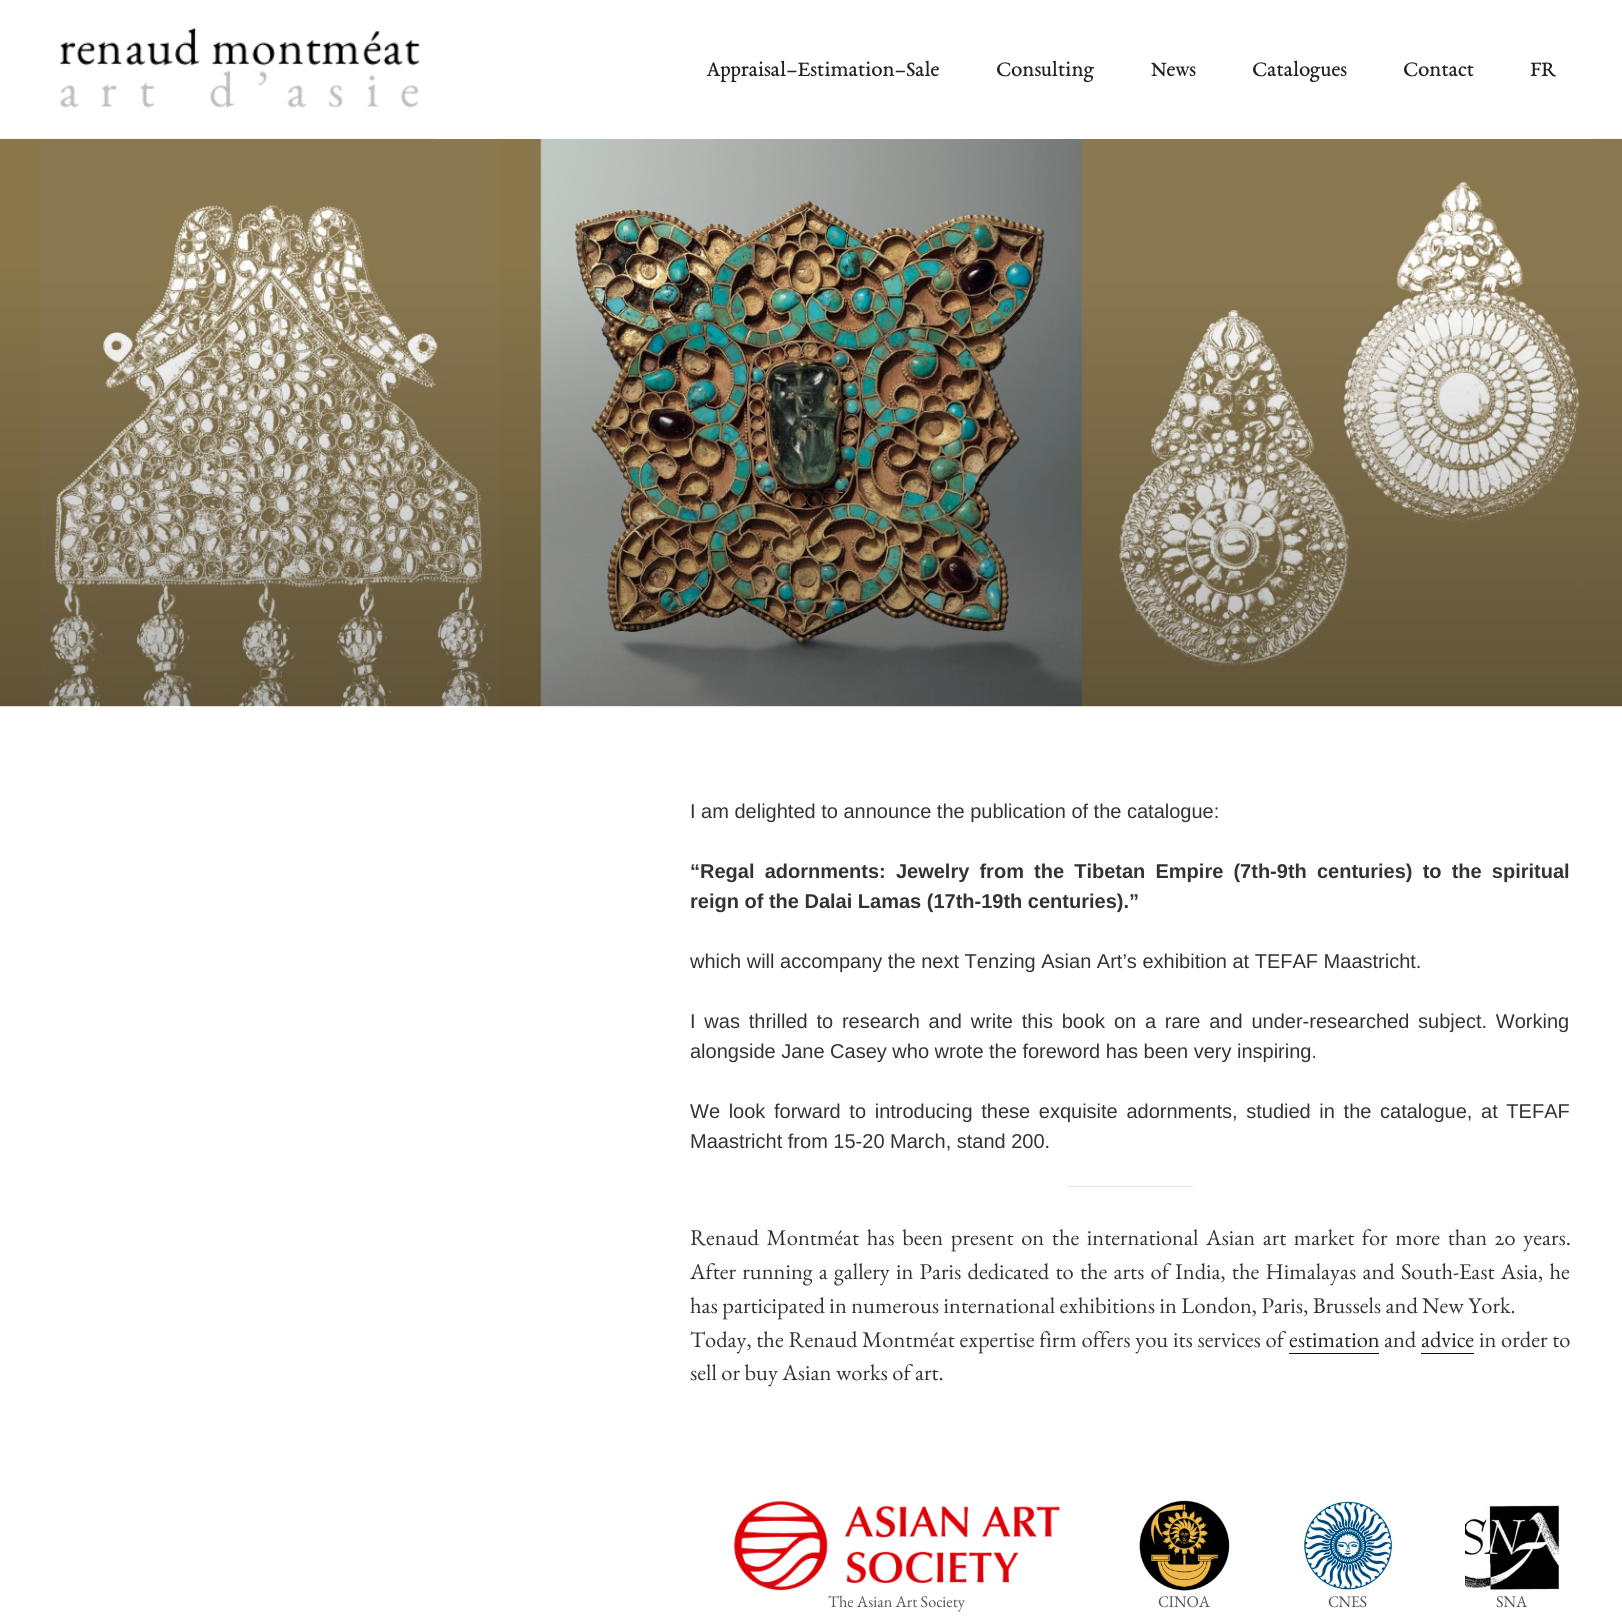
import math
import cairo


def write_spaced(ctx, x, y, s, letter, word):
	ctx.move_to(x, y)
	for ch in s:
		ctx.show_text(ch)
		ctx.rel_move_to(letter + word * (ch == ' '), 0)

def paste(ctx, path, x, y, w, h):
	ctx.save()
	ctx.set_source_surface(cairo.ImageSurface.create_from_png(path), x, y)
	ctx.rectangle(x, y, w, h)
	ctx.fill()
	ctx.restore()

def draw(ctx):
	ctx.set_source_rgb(1, 1, 1)
	ctx.paint()
	paste(ctx, 'media/1.png', 59, 27, 361, 81)
	paste(ctx, 'media/2.png', 0, 138, 1622, 569)
	ctx.set_source_rgb(1, 1, 1)
	ctx.rectangle(436, 138, 1157, 1)
	ctx.fill()
	ctx.select_font_face('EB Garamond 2')
	ctx.set_font_size(22.5)
	ctx.set_source_rgb(0.133, 0.133, 0.133)
	for x, y, s in [
		(706, 76, 'Appraisal–Estimation–Sale'),
		(996, 76, 'Consulting'),
		(1151, 76, 'News'),
		(1252, 76, 'Catalogues'),
		(1403, 76, 'Contact'),
		(1530, 76, 'FR'),
	]:
		ctx.move_to(x, y)
		ctx.show_text(s)
	ctx.select_font_face('Liberation Sans')
	ctx.set_font_size(20)
	ctx.set_source_rgb(0.2, 0.2, 0.2)
	ctx.move_to(690, 818)
	ctx.show_text('I am delighted to announce the publication of the catalogue:')
	ctx.select_font_face('Liberation Sans', cairo.FONT_SLANT_NORMAL, cairo.FONT_WEIGHT_BOLD)
	write_spaced(ctx, 690, 878, '“Regal adornments: Jewelry from the Tibetan Empire (7th-9th centuries) to the spiritual', 0, 4.6)
	ctx.move_to(690, 908)
	ctx.show_text('reign of the Dalai Lamas (17th-19th centuries).”')
	ctx.select_font_face('Liberation Sans')
	ctx.move_to(690, 968)
	ctx.show_text('which will accompany the next Tenzing Asian Art’s exhibition at TEFAF Maastricht.')
	write_spaced(ctx, 690, 1028, 'I was thrilled to research and write this book on a rare and under-researched subject. Working', 0, 3.25)
	ctx.move_to(690, 1058)
	ctx.show_text('alongside Jane Casey who wrote the foreword has been very inspiring.')
	write_spaced(ctx, 690, 1118, 'We look forward to introducing these exquisite adornments, studied in the catalogue, at TEFAF', 0, 3.1)
	ctx.move_to(690, 1148)
	ctx.show_text('Maastricht from 15-20 March, stand 200.')
	ctx.set_source_rgb(0.894, 0.894, 0.894)
	ctx.rectangle(1068, 1186, 125, 1)
	ctx.fill()
	ctx.select_font_face('EB Garamond')
	ctx.set_font_size(22.5)
	ctx.set_source_rgb(0.2, 0.2, 0.2)
	write_spaced(ctx, 690, 1245, 'Renaud Montméat has been present on the international Asian art market for more than 20 years.', 0, 3.1)
	write_spaced(ctx, 690, 1279, 'After running a gallery in Paris dedicated to the arts of India, the Himalayas and South-East Asia, he', 0, 1.75)
	ctx.move_to(690, 1313)
	ctx.show_text('has participated in numerous international exhibitions in London, Paris, Brussels and New York.')
	write_spaced(ctx, 690, 1347, 'Today, the Renaud Montméat expertise firm offers you its services of', 0, 0.25)
	ctx.set_source_rgb(0.133, 0.133, 0.133)
	ctx.move_to(1289, 1347)
	ctx.show_text('estimation')
	ctx.set_source_rgb(0.059, 0.059, 0.059)
	ctx.rectangle(1289, 1353, 90, 1)
	ctx.fill()
	ctx.set_source_rgb(0.2, 0.2, 0.2)
	ctx.move_to(1384, 1347)
	ctx.show_text('and')
	ctx.set_source_rgb(0.133, 0.133, 0.133)
	ctx.move_to(1421, 1347)
	ctx.show_text('advice')
	ctx.set_source_rgb(0.059, 0.059, 0.059)
	ctx.rectangle(1421, 1353, 53, 1)
	ctx.fill()
	ctx.set_source_rgb(0.2, 0.2, 0.2)
	write_spaced(ctx, 1479, 1347, 'in order to', 0, 0.25)
	ctx.move_to(690, 1380)
	ctx.show_text('sell or buy Asian works of art.')
	paste(ctx, 'media/3.png', 733, 1500, 327, 91)
	ctx.set_font_size(16.25)
	ctx.set_source_rgb(0.333, 0.333, 0.333)
	ctx.move_to(828, 1607)
	ctx.show_text('The Asian Art Society')
	paste(ctx, 'media/4.png', 1139, 1500, 91, 91)
	ctx.move_to(1158, 1607)
	ctx.show_text('CINOA')
	paste(ctx, 'media/5.png', 1301, 1498, 94, 95)
	ctx.move_to(1328, 1607)
	ctx.show_text('CNES')
	paste(ctx, 'media/6.png', 1465, 1505, 94, 87)
	ctx.move_to(1496, 1607)
	ctx.show_text('SNA')


surface = cairo.ImageSurface(cairo.FORMAT_RGB24, 1622, 1620)
ctx = cairo.Context(surface)
options = cairo.FontOptions()
options.set_hint_metrics(cairo.HINT_METRICS_OFF)
options.set_hint_style(cairo.HINT_STYLE_NONE)
ctx.set_font_options(options)
ctx.set_miter_limit(4)
draw(ctx)
surface.write_to_png('image.png')
